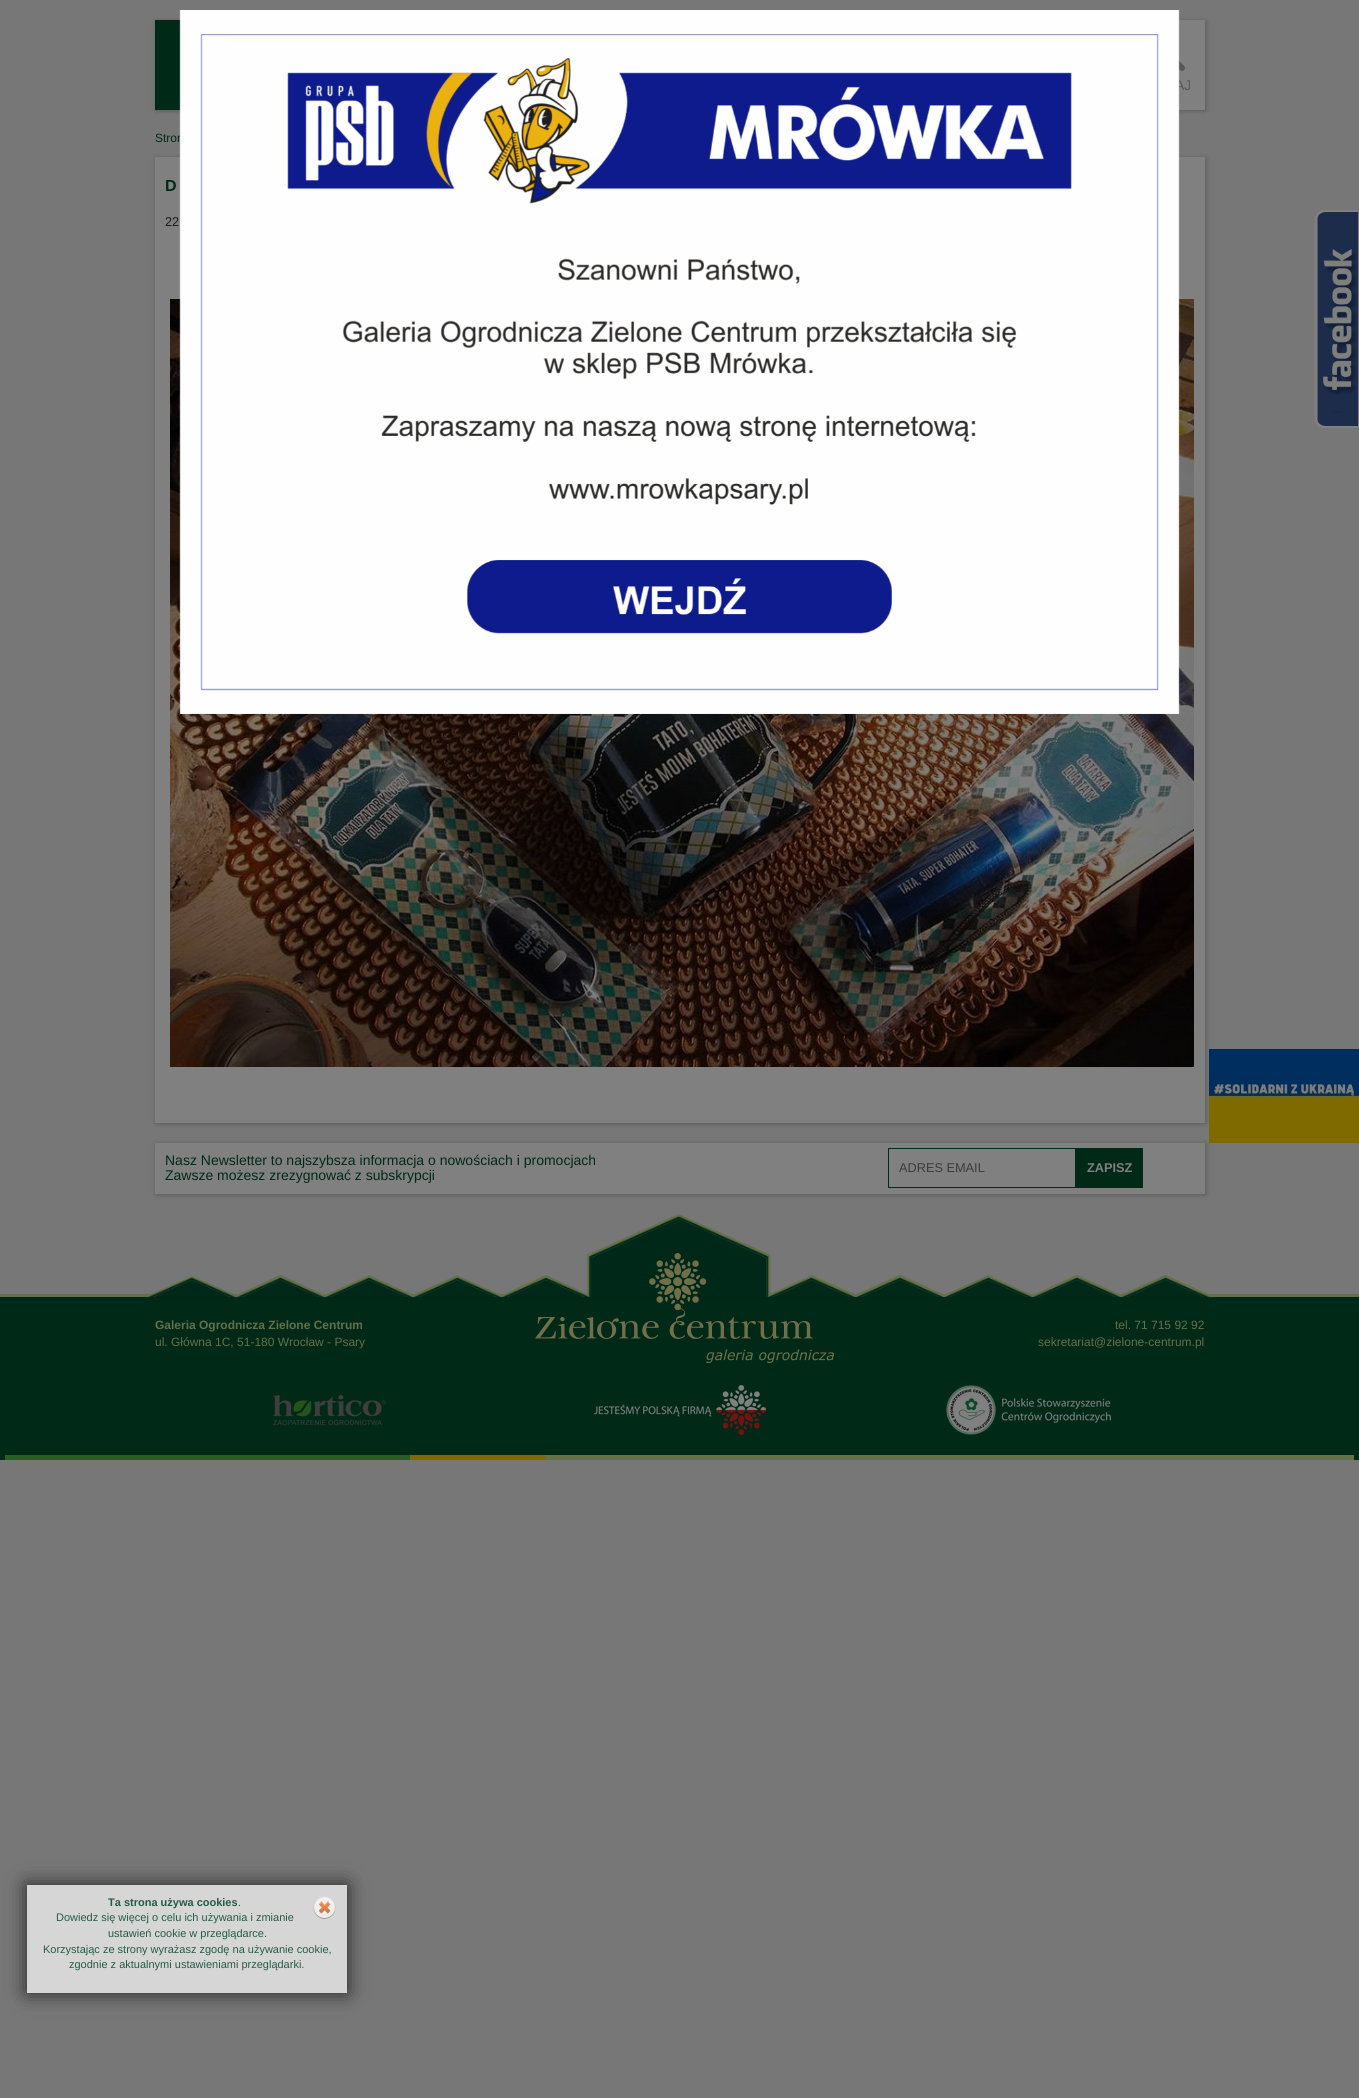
import math
import cairo


def round_path(ctx, x, y, w, h, r):
	ctx.new_sub_path()
	for i, (u, v) in enumerate([(x + w - r, y + h - r), (x + r, y + h - r), (x + r, y + r), (x + w - r, y + r)]):
		ctx.arc(u, v, r, i * math.pi / 2, (i + 1) * math.pi / 2)
	ctx.close_path()

def blur_box(ctx, x, y, w, h, r, blur, alpha):
	ctx.push_group_with_content(cairo.CONTENT_ALPHA)
	ctx.set_operator(cairo.OPERATOR_SOURCE)
	for i in range(15, -16, -2):
		e = blur * i / 6
		if min(w, h) + 2 * e > 0:
			ctx.set_source_rgba(0, 0, 0, alpha * math.erfc((i - 1) / 8.5) / 2)
			round_path(ctx, x - e, y - e, w + 2 * e, h + 2 * e, max(0, min(r + e + blur * .6, min(w, h) / 2 + e)))
			ctx.fill()
	ctx.mask(ctx.pop_group())

def paste(ctx, path, x, y, w, h):
	ctx.save()
	ctx.set_source_surface(cairo.ImageSurface.create_from_png(path), x, y)
	ctx.rectangle(x, y, w, h)
	ctx.fill()
	ctx.restore()

def draw(ctx):
	ctx.set_source_rgb(0.467, 0.467, 0.467)
	ctx.paint()
	ctx.set_source_rgb(0.098, 0.098, 0.098)
	blur_box(ctx, 156, 21, 1050, 90, 0, 2.5, 0.3)
	ctx.set_source_rgb(0.502, 0.502, 0.502)
	ctx.rectangle(1178, 20, 27, 90)
	ctx.fill()
	ctx.set_source_rgb(0, 0.161, 0.094)
	ctx.rectangle(155, 20, 26, 90)
	ctx.fill()
	paste(ctx, 'media/1.png', 1178, 59, 7, 12)
	ctx.select_font_face('Liberation Sans')
	ctx.set_font_size(14)
	ctx.set_source_rgb(0.341, 0.345, 0.349)
	ctx.move_to(1175, 90)
	ctx.show_text('AJ')
	ctx.set_font_size(12)
	ctx.set_source_rgb(0, 0.161, 0.094)
	ctx.move_to(155, 142)
	ctx.show_text('Stron')
	ctx.set_source_rgb(0.098, 0.098, 0.098)
	blur_box(ctx, 156, 158, 1050, 966, 0, 2.5, 0.3)
	ctx.set_source_rgb(0.502, 0.502, 0.502)
	ctx.rectangle(155, 157, 1050, 966)
	ctx.fill()
	paste(ctx, 'media/3.png', 170, 299, 1024, 768)
	paste(ctx, 'media/2.png', 179, 10, 1001, 704)
	ctx.select_font_face('Liberation Sans', cairo.FONT_SLANT_NORMAL, cairo.FONT_WEIGHT_BOLD)
	ctx.set_font_size(16)
	ctx.set_source_rgb(0, 0.161, 0.094)
	ctx.move_to(165, 191)
	ctx.show_text('D')
	ctx.select_font_face('Liberation Sans')
	ctx.set_font_size(12.75)
	ctx.set_source_rgb(0.102, 0.102, 0.102)
	ctx.move_to(165, 226)
	ctx.show_text('22')
	paste(ctx, 'media/4.png', 1315, 210, 43, 218)
	ctx.set_source_rgb(0.502, 0.502, 0.502)
	ctx.rectangle(1358, 210, 1, 218)
	ctx.fill()
	ctx.set_source_rgb(0.098, 0.098, 0.098)
	blur_box(ctx, 156, 1144, 1050, 51, 0, 2.5, 0.3)
	paste(ctx, 'media/5.png', 1209, 1049, 150, 94)
	ctx.set_source_rgb(0.502, 0.502, 0.502)
	ctx.rectangle(155, 1143, 1050, 51)
	ctx.fill()
	ctx.set_font_size(14)
	ctx.set_source_rgb(0, 0.161, 0.094)
	ctx.move_to(165, 1165)
	ctx.show_text('Nasz Newsletter to najszybsza informacja o nowościach i promocjach')
	ctx.move_to(165, 1180)
	ctx.show_text('Zawsze możesz zrezygnować z subskrypcji')
	ctx.rectangle(888.5, 1148.5, 187, 39)
	ctx.set_line_width(1)
	ctx.stroke()
	ctx.set_font_size(12.75)
	ctx.set_source_rgb(0.231, 0.231, 0.231)
	ctx.move_to(899, 1172)
	ctx.show_text('ADRES EMAIL')
	ctx.set_source_rgb(0, 0.161, 0.094)
	ctx.rectangle(1076, 1148, 67, 40)
	ctx.fill()
	ctx.select_font_face('Liberation Sans', cairo.FONT_SLANT_NORMAL, cairo.FONT_WEIGHT_BOLD)
	ctx.set_source_rgb(0.502, 0.502, 0.502)
	ctx.move_to(1087, 1172)
	ctx.show_text('ZAPISZ')
	ctx.set_source_rgb(0, 0.161, 0.094)
	ctx.rectangle(0, 1297, 1359, 163)
	ctx.fill()
	ctx.set_source_rgb(0.392, 0.439, 0.278)
	ctx.rectangle(0, 1294, 1359, 3)
	ctx.fill()
	paste(ctx, 'media/6.png', 145, 1214, 1069, 84)
	ctx.set_font_size(12)
	ctx.move_to(155, 1329)
	ctx.show_text('Galeria Ogrodnicza Zielone Centrum')
	ctx.select_font_face('Liberation Sans')
	ctx.move_to(155, 1346)
	ctx.show_text('ul. Główna 1C, 51-180 Wrocław - Psary')
	paste(ctx, 'media/7.png', 535, 1253, 299, 110)
	ctx.move_to(1115, 1329)
	ctx.show_text('tel. 71 715 92 92')
	ctx.move_to(1038, 1346)
	ctx.show_text('sekretariat@zielone-centrum.pl')
	paste(ctx, 'media/8.png', 273, 1395, 113, 30)
	paste(ctx, 'media/9.png', 594, 1385, 172, 50)
	paste(ctx, 'media/10.png', 946, 1385, 165, 50)
	ctx.set_source_rgb(0.165, 0.365, 0.141)
	ctx.rectangle(5, 1455, 405, 5)
	ctx.fill()
	ctx.set_source_rgb(0.502, 0.412, 0)
	ctx.rectangle(410, 1455, 135, 5)
	ctx.fill()
	ctx.set_source_rgb(0.392, 0.439, 0.278)
	ctx.rectangle(545, 1455, 809, 5)
	ctx.fill()
	ctx.set_source_rgb(0.141, 0.141, 0.141)
	blur_box(ctx, 27, 1885, 320, 108, 0, 10, 1)
	ctx.set_source_rgb(0.839, 0.839, 0.839)
	ctx.rectangle(27, 1885, 320, 108)
	ctx.fill()
	paste(ctx, 'media/11.png', 313, 1897, 23, 22)
	ctx.select_font_face('Liberation Sans', cairo.FONT_SLANT_NORMAL, cairo.FONT_WEIGHT_BOLD)
	ctx.set_font_size(11)
	ctx.set_source_rgb(0.141, 0.361, 0.271)
	ctx.move_to(108, 1906)
	ctx.show_text('Ta strona używa cookies')
	ctx.select_font_face('Liberation Sans')
	for x, y, s in [
		(238, 1906, '.'),
		(56, 1921, 'Dowiedz się więcej o celu ich używania i zmianie'),
		(108, 1937, 'ustawień cookie w przeglądarce.'),
		(43, 1953, 'Korzystając ze strony wyrażasz zgodę na używanie cookie,'),
		(69, 1968, 'zgodnie z aktualnymi ustawieniami przeglądarki.'),
	]:
		ctx.move_to(x, y)
		ctx.show_text(s)


surface = cairo.ImageSurface(cairo.FORMAT_RGB24, 1359, 2098)
ctx = cairo.Context(surface)
options = cairo.FontOptions()
options.set_hint_metrics(cairo.HINT_METRICS_OFF)
options.set_hint_style(cairo.HINT_STYLE_NONE)
ctx.set_font_options(options)
ctx.set_miter_limit(4)
draw(ctx)
surface.write_to_png('image.png')
